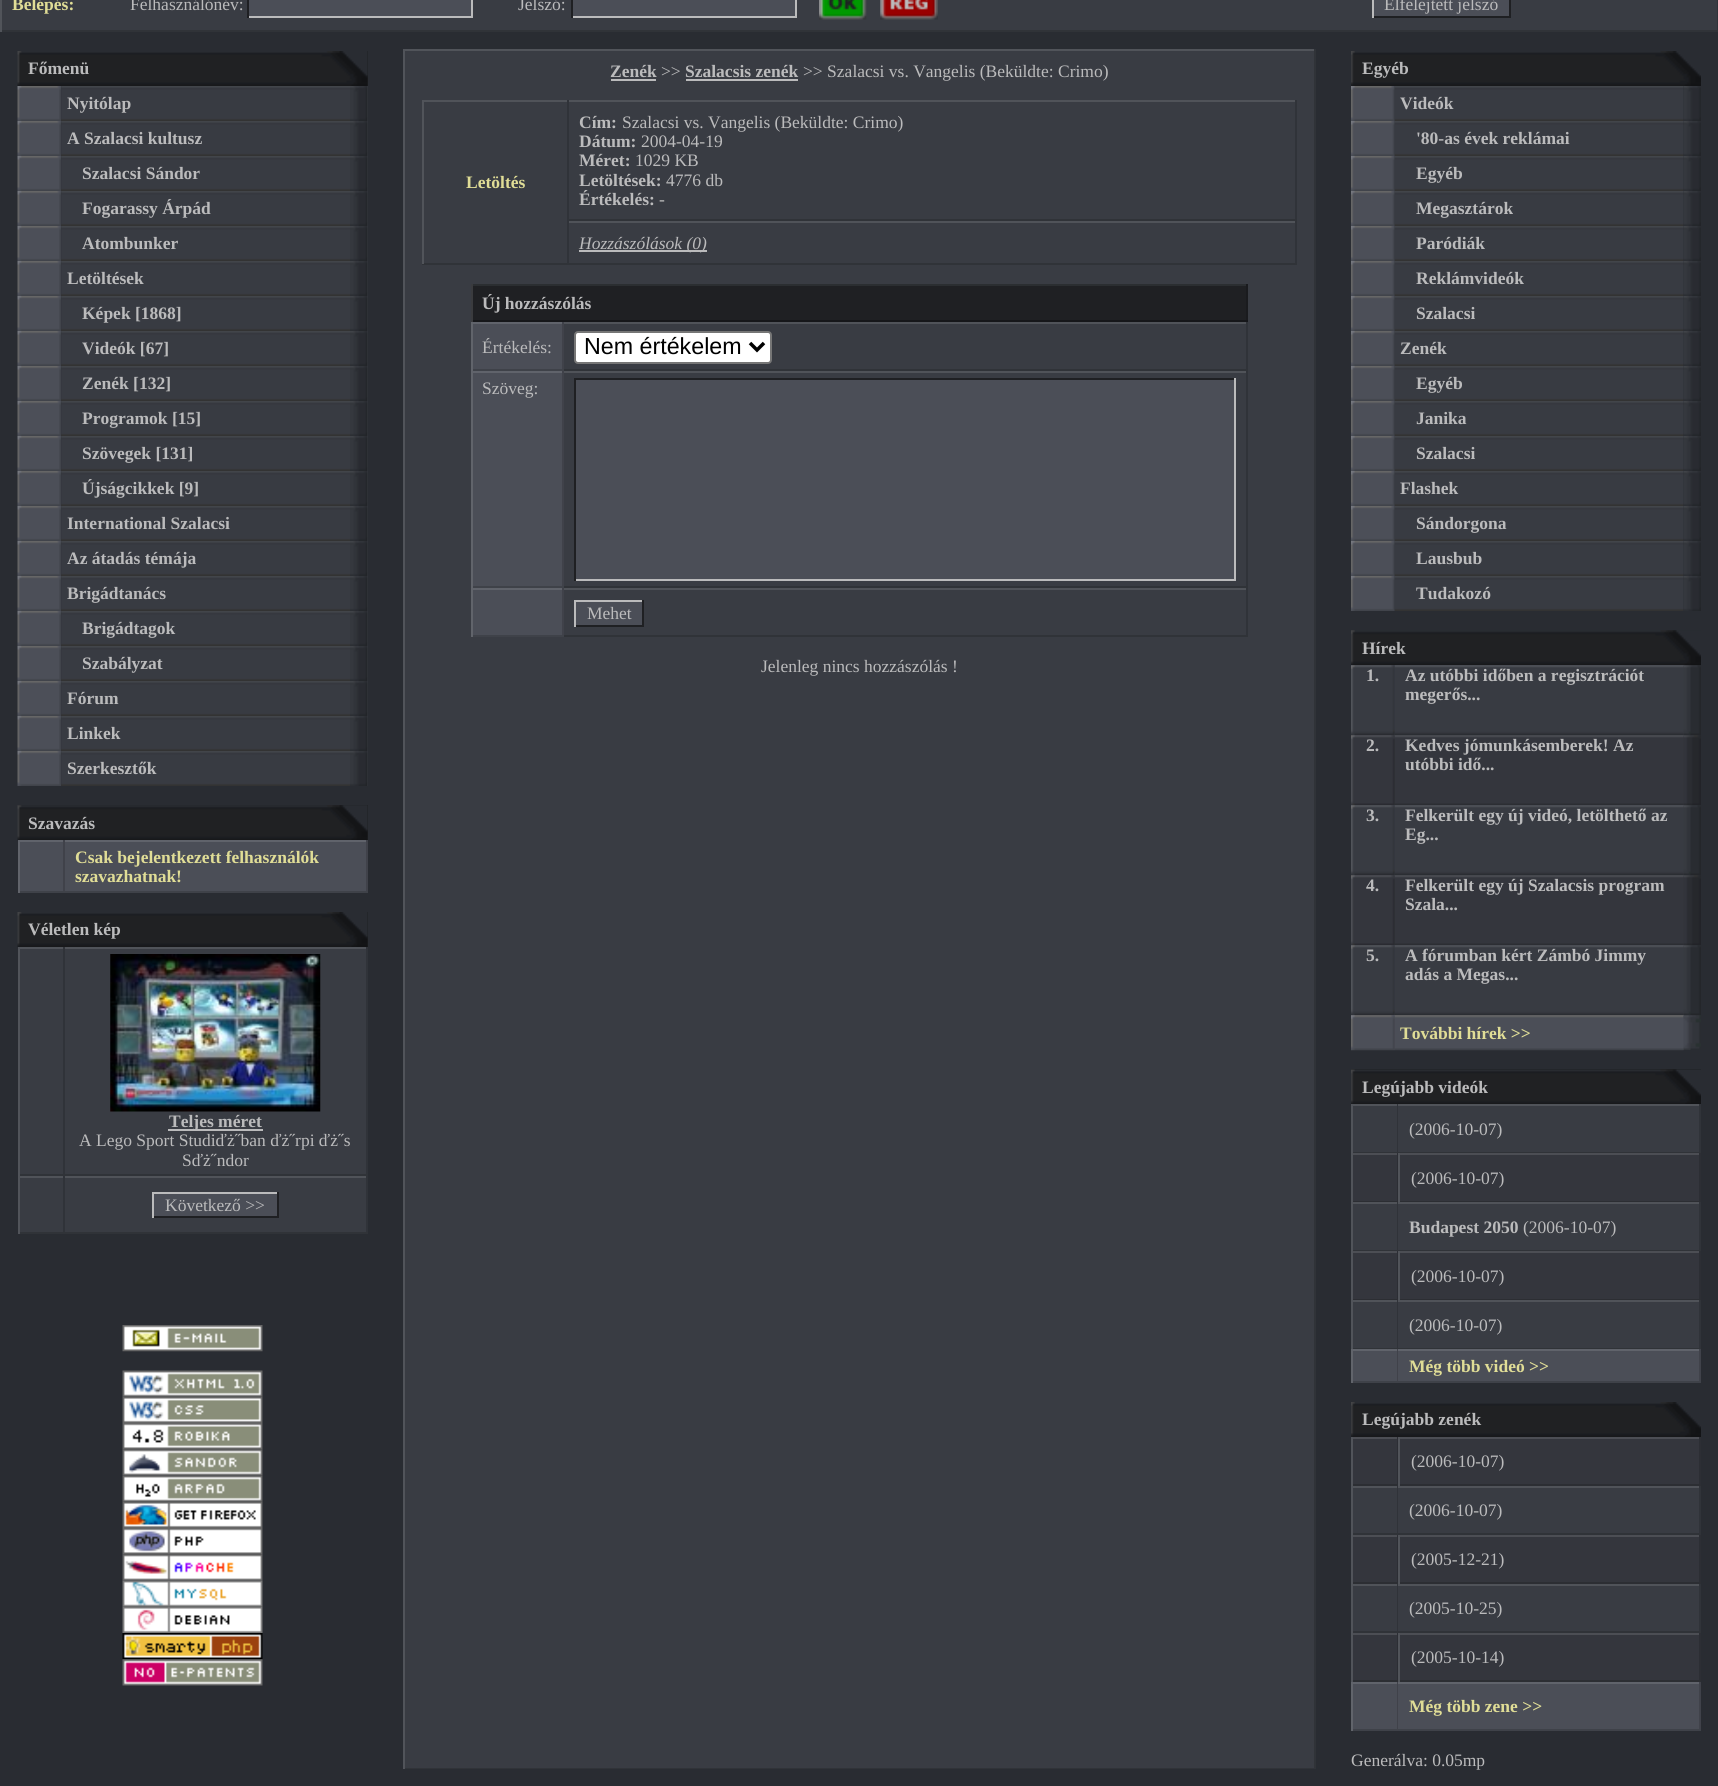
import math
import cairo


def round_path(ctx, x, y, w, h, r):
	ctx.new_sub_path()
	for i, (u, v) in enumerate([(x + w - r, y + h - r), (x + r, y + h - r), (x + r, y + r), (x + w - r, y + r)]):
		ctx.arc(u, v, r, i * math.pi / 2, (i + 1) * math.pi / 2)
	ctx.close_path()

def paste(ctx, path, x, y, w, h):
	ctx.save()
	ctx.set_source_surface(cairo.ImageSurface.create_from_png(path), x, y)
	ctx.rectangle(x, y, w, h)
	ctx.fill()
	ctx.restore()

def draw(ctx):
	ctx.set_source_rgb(0.161, 0.173, 0.196)
	ctx.paint()
	ctx.set_source_rgb(0.224, 0.235, 0.263)
	ctx.rectangle(2, 0, 1715, 30)
	ctx.fill()
	ctx.set_source_rgb(0.188, 0.2, 0.224)
	ctx.rectangle(1717, 0, 1, 32)
	ctx.fill()
	ctx.set_source_rgb(0.188, 0.2, 0.22)
	ctx.rectangle(0, 30, 1718, 2)
	ctx.fill()
	ctx.set_source_rgb(0.318, 0.329, 0.353)
	ctx.rectangle(0, 0, 2, 32)
	ctx.fill()
	ctx.select_font_face('Liberation Serif', cairo.FONT_SLANT_NORMAL, cairo.FONT_WEIGHT_BOLD)
	ctx.set_font_size(17.5)
	ctx.set_source_rgb(0.878, 0.867, 0.588)
	ctx.move_to(12, 10)
	ctx.show_text('Belépés:')
	ctx.select_font_face('Liberation Serif')
	ctx.set_source_rgb(0.733, 0.733, 0.737)
	ctx.move_to(130, 10)
	ctx.show_text('Felhasználónév:')
	ctx.set_source_rgb(0.294, 0.306, 0.341)
	ctx.rectangle(249, 0, 222, 16)
	ctx.fill()
	ctx.set_source_rgb(0.733, 0.733, 0.737)
	ctx.rectangle(471, 0, 2, 18)
	ctx.rectangle(247, 16, 226, 2)
	ctx.fill()
	ctx.set_source_rgb(0.122, 0.125, 0.137)
	ctx.rectangle(247, 0, 2, 18)
	ctx.fill()
	ctx.set_source_rgb(0.733, 0.733, 0.737)
	ctx.move_to(518, 10)
	ctx.show_text('Jelszó:')
	ctx.set_source_rgb(0.294, 0.306, 0.341)
	ctx.rectangle(573, 0, 222, 16)
	ctx.fill()
	ctx.set_source_rgb(0.733, 0.733, 0.737)
	ctx.rectangle(795, 0, 2, 18)
	ctx.rectangle(571, 16, 225, 2)
	ctx.fill()
	ctx.set_source_rgb(0.122, 0.125, 0.137)
	ctx.rectangle(571, 0, 2, 18)
	ctx.fill()
	paste(ctx, 'media/1.png', 819, 0, 48, 20)
	paste(ctx, 'media/2.png', 880, 0, 58, 20)
	ctx.set_source_rgb(0.294, 0.306, 0.341)
	ctx.rectangle(1374, 0, 135, 16)
	ctx.fill()
	ctx.set_source_rgb(0.122, 0.125, 0.137)
	ctx.rectangle(1509, 0, 2, 18)
	ctx.rectangle(1372, 16, 138, 2)
	ctx.fill()
	ctx.set_source_rgb(0.733, 0.733, 0.737)
	ctx.rectangle(1372, 0, 2, 18)
	ctx.fill()
	ctx.move_to(1384, 10)
	ctx.show_text('Elfelejtett jelszó')
	ctx.set_source_rgb(0.122, 0.125, 0.137)
	ctx.rectangle(367, 51, 1, 35)
	ctx.fill()
	paste(ctx, 'media/3.png', 17, 51, 351, 35)
	ctx.select_font_face('Liberation Serif', cairo.FONT_SLANT_NORMAL, cairo.FONT_WEIGHT_BOLD)
	ctx.set_source_rgb(0.733, 0.733, 0.737)
	ctx.move_to(28, 74)
	ctx.show_text('Főmenü')
	paste(ctx, 'media/4.png', 17, 86, 45, 35)
	paste(ctx, 'media/5.png', 61, 86, 289, 35)
	ctx.move_to(67, 109)
	ctx.show_text('Nyitólap')
	ctx.set_source_rgb(0.224, 0.235, 0.263)
	ctx.rectangle(367, 86, 1, 700)
	ctx.fill()
	paste(ctx, 'media/6.png', 350, 86, 18, 35)
	paste(ctx, 'media/4.png', 17, 121, 45, 35)
	paste(ctx, 'media/5.png', 61, 121, 289, 35)
	ctx.set_source_rgb(0.733, 0.733, 0.737)
	ctx.move_to(67, 144)
	ctx.show_text('A Szalacsi kultusz')
	paste(ctx, 'media/6.png', 350, 121, 18, 35)
	paste(ctx, 'media/4.png', 17, 156, 45, 35)
	paste(ctx, 'media/5.png', 61, 156, 289, 35)
	ctx.move_to(82, 179)
	ctx.show_text('Szalacsi Sándor')
	paste(ctx, 'media/6.png', 350, 156, 18, 35)
	paste(ctx, 'media/4.png', 17, 191, 45, 35)
	paste(ctx, 'media/7.png', 61, 191, 289, 35)
	ctx.move_to(82, 214)
	ctx.show_text('Fogarassy Árpád')
	paste(ctx, 'media/6.png', 350, 191, 18, 35)
	paste(ctx, 'media/4.png', 17, 226, 45, 35)
	paste(ctx, 'media/8.png', 61, 226, 289, 35)
	ctx.move_to(82, 249)
	ctx.show_text('Atombunker')
	paste(ctx, 'media/6.png', 350, 226, 18, 35)
	paste(ctx, 'media/4.png', 17, 261, 45, 35)
	paste(ctx, 'media/5.png', 61, 261, 289, 35)
	ctx.move_to(67, 284)
	ctx.show_text('Letöltések')
	paste(ctx, 'media/6.png', 350, 261, 18, 35)
	paste(ctx, 'media/4.png', 17, 296, 45, 35)
	paste(ctx, 'media/5.png', 61, 296, 289, 35)
	ctx.move_to(82, 319)
	ctx.show_text('Képek [1868]')
	paste(ctx, 'media/6.png', 350, 296, 18, 35)
	paste(ctx, 'media/4.png', 17, 331, 45, 35)
	paste(ctx, 'media/5.png', 61, 331, 289, 35)
	ctx.move_to(82, 354)
	ctx.show_text('Videók [67]')
	paste(ctx, 'media/6.png', 350, 331, 18, 35)
	paste(ctx, 'media/4.png', 17, 366, 45, 35)
	paste(ctx, 'media/5.png', 61, 366, 289, 35)
	ctx.move_to(82, 389)
	ctx.show_text('Zenék [132]')
	paste(ctx, 'media/6.png', 350, 366, 18, 35)
	paste(ctx, 'media/4.png', 17, 401, 45, 35)
	paste(ctx, 'media/5.png', 61, 401, 289, 35)
	ctx.move_to(82, 424)
	ctx.show_text('Programok [15]')
	paste(ctx, 'media/6.png', 350, 401, 18, 35)
	paste(ctx, 'media/4.png', 17, 436, 45, 35)
	paste(ctx, 'media/5.png', 61, 436, 289, 35)
	ctx.move_to(82, 459)
	ctx.show_text('Szövegek [131]')
	paste(ctx, 'media/6.png', 350, 436, 18, 35)
	paste(ctx, 'media/4.png', 17, 471, 45, 35)
	paste(ctx, 'media/5.png', 61, 471, 289, 35)
	ctx.move_to(82, 494)
	ctx.show_text('Újságcikkek [9]')
	paste(ctx, 'media/6.png', 350, 471, 18, 35)
	paste(ctx, 'media/4.png', 17, 506, 45, 35)
	paste(ctx, 'media/5.png', 61, 506, 289, 35)
	ctx.move_to(67, 529)
	ctx.show_text('International Szalacsi')
	paste(ctx, 'media/6.png', 350, 506, 18, 35)
	paste(ctx, 'media/4.png', 17, 541, 45, 35)
	paste(ctx, 'media/9.png', 61, 541, 289, 35)
	ctx.move_to(67, 564)
	ctx.show_text('Az átadás témája')
	paste(ctx, 'media/6.png', 350, 541, 18, 35)
	paste(ctx, 'media/4.png', 17, 576, 45, 35)
	paste(ctx, 'media/9.png', 61, 576, 289, 35)
	ctx.move_to(67, 599)
	ctx.show_text('Brigádtanács')
	paste(ctx, 'media/6.png', 350, 576, 18, 35)
	paste(ctx, 'media/4.png', 17, 611, 45, 35)
	paste(ctx, 'media/10.png', 61, 611, 289, 35)
	ctx.move_to(82, 634)
	ctx.show_text('Brigádtagok')
	paste(ctx, 'media/6.png', 350, 611, 18, 35)
	paste(ctx, 'media/4.png', 17, 646, 45, 35)
	paste(ctx, 'media/5.png', 61, 646, 289, 35)
	ctx.move_to(82, 669)
	ctx.show_text('Szabályzat')
	paste(ctx, 'media/6.png', 350, 646, 18, 35)
	paste(ctx, 'media/4.png', 17, 681, 45, 35)
	paste(ctx, 'media/5.png', 61, 681, 289, 35)
	ctx.move_to(67, 704)
	ctx.show_text('Fórum')
	paste(ctx, 'media/6.png', 350, 681, 18, 35)
	paste(ctx, 'media/4.png', 17, 716, 45, 35)
	paste(ctx, 'media/9.png', 61, 716, 289, 35)
	ctx.move_to(67, 739)
	ctx.show_text('Linkek')
	paste(ctx, 'media/6.png', 350, 716, 18, 35)
	paste(ctx, 'media/4.png', 17, 751, 45, 35)
	paste(ctx, 'media/10.png', 61, 751, 289, 35)
	ctx.move_to(67, 774)
	ctx.show_text('Szerkesztők')
	paste(ctx, 'media/6.png', 350, 751, 18, 35)
	ctx.set_source_rgb(0.122, 0.125, 0.137)
	ctx.rectangle(18, 805, 350, 35)
	ctx.fill()
	paste(ctx, 'media/11.png', 17, 805, 351, 36)
	ctx.set_source_rgb(0.733, 0.733, 0.737)
	ctx.move_to(28, 829)
	ctx.show_text('Szavazás')
	ctx.set_source_rgb(0.294, 0.306, 0.341)
	ctx.rectangle(20, 842, 43, 49)
	ctx.fill()
	ctx.set_source_rgb(0.376, 0.388, 0.42)
	ctx.rectangle(18, 840, 350, 2)
	ctx.fill()
	ctx.set_source_rgb(0.251, 0.259, 0.29)
	ctx.rectangle(63, 840, 2, 53)
	ctx.fill()
	ctx.set_source_rgb(0.247, 0.259, 0.286)
	ctx.rectangle(18, 891, 47, 2)
	ctx.fill()
	ctx.set_source_rgb(0.38, 0.392, 0.42)
	ctx.rectangle(18, 840, 2, 53)
	ctx.fill()
	ctx.set_source_rgb(0.294, 0.306, 0.341)
	ctx.rectangle(65, 842, 301, 49)
	ctx.fill()
	ctx.set_source_rgb(0.251, 0.259, 0.29)
	ctx.rectangle(366, 840, 2, 53)
	ctx.fill()
	ctx.set_source_rgb(0.247, 0.259, 0.286)
	ctx.rectangle(65, 891, 303, 2)
	ctx.fill()
	ctx.set_source_rgb(0.878, 0.867, 0.588)
	ctx.move_to(75, 863)
	ctx.show_text('Csak bejelentkezett felhasználók')
	ctx.move_to(75, 882)
	ctx.show_text('szavazhatnak!')
	ctx.set_source_rgb(0.122, 0.125, 0.137)
	ctx.rectangle(367, 912, 1, 35)
	ctx.fill()
	paste(ctx, 'media/3.png', 17, 912, 351, 35)
	ctx.set_source_rgb(0.733, 0.733, 0.737)
	ctx.move_to(28, 935)
	ctx.show_text('Véletlen kép')
	ctx.set_source_rgb(0.224, 0.235, 0.263)
	ctx.rectangle(20, 949, 43, 225)
	ctx.fill()
	ctx.set_source_rgb(0.314, 0.325, 0.349)
	ctx.rectangle(18, 947, 350, 2)
	ctx.fill()
	ctx.set_source_rgb(0.188, 0.2, 0.224)
	ctx.rectangle(63, 947, 2, 229)
	ctx.fill()
	ctx.set_source_rgb(0.188, 0.2, 0.22)
	ctx.rectangle(18, 1174, 47, 2)
	ctx.fill()
	ctx.set_source_rgb(0.318, 0.329, 0.353)
	ctx.rectangle(18, 947, 2, 229)
	ctx.fill()
	ctx.set_source_rgb(0.224, 0.235, 0.263)
	ctx.rectangle(65, 949, 301, 225)
	ctx.fill()
	ctx.set_source_rgb(0.188, 0.2, 0.224)
	ctx.rectangle(366, 947, 2, 229)
	ctx.fill()
	ctx.set_source_rgb(0.188, 0.2, 0.22)
	ctx.rectangle(65, 1174, 303, 2)
	ctx.fill()
	paste(ctx, 'media/12.png', 110, 954, 211, 158)
	ctx.set_source_rgb(0.733, 0.733, 0.737)
	ctx.rectangle(168, 1129, 95, 2)
	ctx.fill()
	ctx.move_to(169, 1127)
	ctx.show_text('Teljes méret')
	ctx.select_font_face('Liberation Serif')
	ctx.move_to(79, 1146)
	ctx.show_text('A Lego Sport Studiďż˝ban ďż˝rpi ďż˝s')
	ctx.move_to(182, 1166)
	ctx.show_text('Sďż˝ndor')
	ctx.set_source_rgb(0.224, 0.235, 0.263)
	ctx.rectangle(20, 1178, 43, 54)
	ctx.fill()
	ctx.set_source_rgb(0.314, 0.325, 0.349)
	ctx.rectangle(18, 1176, 350, 2)
	ctx.fill()
	ctx.set_source_rgb(0.188, 0.2, 0.224)
	ctx.rectangle(63, 1176, 2, 58)
	ctx.fill()
	ctx.set_source_rgb(0.188, 0.2, 0.22)
	ctx.rectangle(18, 1232, 47, 2)
	ctx.fill()
	ctx.set_source_rgb(0.318, 0.329, 0.353)
	ctx.rectangle(18, 1176, 2, 58)
	ctx.fill()
	ctx.set_source_rgb(0.224, 0.235, 0.263)
	ctx.rectangle(65, 1178, 301, 54)
	ctx.fill()
	ctx.set_source_rgb(0.188, 0.2, 0.224)
	ctx.rectangle(366, 1176, 2, 58)
	ctx.fill()
	ctx.set_source_rgb(0.188, 0.2, 0.22)
	ctx.rectangle(65, 1232, 303, 2)
	ctx.fill()
	ctx.set_source_rgb(0.294, 0.306, 0.341)
	ctx.rectangle(154, 1194, 123, 22)
	ctx.fill()
	ctx.set_source_rgb(0.733, 0.733, 0.737)
	ctx.rectangle(152, 1192, 126, 2)
	ctx.fill()
	ctx.set_source_rgb(0.122, 0.125, 0.137)
	ctx.rectangle(277, 1192, 2, 26)
	ctx.rectangle(152, 1216, 126, 2)
	ctx.fill()
	ctx.set_source_rgb(0.733, 0.733, 0.737)
	ctx.rectangle(152, 1192, 2, 26)
	ctx.fill()
	ctx.move_to(165, 1211)
	ctx.show_text('Következő >>')
	paste(ctx, 'media/13.png', 122, 1325, 141, 27)
	paste(ctx, 'media/14.png', 122, 1370, 141, 27)
	paste(ctx, 'media/15.png', 122, 1396, 141, 27)
	paste(ctx, 'media/16.png', 122, 1423, 141, 27)
	paste(ctx, 'media/17.png', 122, 1449, 141, 27)
	paste(ctx, 'media/18.png', 122, 1475, 141, 27)
	paste(ctx, 'media/19.png', 122, 1501, 141, 27)
	paste(ctx, 'media/20.png', 122, 1528, 141, 27)
	paste(ctx, 'media/21.png', 122, 1554, 141, 27)
	paste(ctx, 'media/22.png', 122, 1580, 141, 27)
	paste(ctx, 'media/23.png', 122, 1606, 141, 27)
	paste(ctx, 'media/24.png', 122, 1633, 141, 27)
	paste(ctx, 'media/25.png', 122, 1659, 141, 27)
	ctx.set_source_rgb(0.224, 0.235, 0.263)
	ctx.rectangle(405, 51, 909, 1717)
	ctx.fill()
	ctx.set_source_rgb(0.318, 0.329, 0.353)
	ctx.rectangle(403, 49, 913, 2)
	ctx.fill()
	ctx.set_source_rgb(0.188, 0.2, 0.22)
	ctx.rectangle(1314, 49, 2, 1720)
	ctx.rectangle(403, 1768, 913, 1)
	ctx.fill()
	ctx.set_source_rgb(0.318, 0.329, 0.353)
	ctx.rectangle(403, 49, 2, 1720)
	ctx.fill()
	ctx.select_font_face('Liberation Serif', cairo.FONT_SLANT_NORMAL, cairo.FONT_WEIGHT_BOLD)
	ctx.set_source_rgb(0.733, 0.733, 0.737)
	ctx.move_to(610, 77)
	ctx.show_text('Zenék')
	ctx.rectangle(611, 79, 45, 2)
	ctx.fill()
	ctx.select_font_face('Liberation Serif')
	ctx.move_to(661, 77)
	ctx.show_text('>>')
	ctx.select_font_face('Liberation Serif', cairo.FONT_SLANT_NORMAL, cairo.FONT_WEIGHT_BOLD)
	ctx.move_to(685, 77)
	ctx.show_text('Szalacsis zenék')
	ctx.rectangle(686, 79, 112, 2)
	ctx.fill()
	ctx.select_font_face('Liberation Serif')
	ctx.move_to(803, 77)
	ctx.show_text('>> Szalacsi vs. Vangelis (Beküldte: Crimo)')
	ctx.set_source_rgb(0.314, 0.325, 0.349)
	ctx.rectangle(422, 100, 875, 2)
	ctx.fill()
	ctx.set_source_rgb(0.188, 0.2, 0.224)
	ctx.rectangle(567, 100, 2, 164)
	ctx.fill()
	ctx.set_source_rgb(0.188, 0.2, 0.22)
	ctx.rectangle(422, 263, 147, 2)
	ctx.fill()
	ctx.set_source_rgb(0.318, 0.329, 0.353)
	ctx.rectangle(422, 100, 2, 164)
	ctx.fill()
	ctx.select_font_face('Liberation Serif', cairo.FONT_SLANT_NORMAL, cairo.FONT_WEIGHT_BOLD)
	ctx.set_source_rgb(0.878, 0.867, 0.588)
	ctx.move_to(466, 188)
	ctx.show_text('Letöltés')
	ctx.set_source_rgb(0.188, 0.2, 0.224)
	ctx.rectangle(1295, 100, 2, 121)
	ctx.fill()
	ctx.set_source_rgb(0.188, 0.2, 0.22)
	ctx.rectangle(569, 219, 728, 2)
	ctx.fill()
	ctx.set_source_rgb(0.733, 0.733, 0.737)
	ctx.move_to(579, 128)
	ctx.show_text('Cím:')
	ctx.select_font_face('Liberation Serif')
	ctx.move_to(622, 128)
	ctx.show_text('Szalacsi vs. Vangelis (Beküldte: Crimo)')
	ctx.select_font_face('Liberation Serif', cairo.FONT_SLANT_NORMAL, cairo.FONT_WEIGHT_BOLD)
	ctx.move_to(579, 147)
	ctx.show_text('Dátum:')
	ctx.select_font_face('Liberation Serif')
	ctx.move_to(641, 147)
	ctx.show_text('2004-04-19')
	ctx.select_font_face('Liberation Serif', cairo.FONT_SLANT_NORMAL, cairo.FONT_WEIGHT_BOLD)
	ctx.move_to(579, 166)
	ctx.show_text('Méret:')
	ctx.select_font_face('Liberation Serif')
	ctx.move_to(635, 166)
	ctx.show_text('1029 KB')
	ctx.select_font_face('Liberation Serif', cairo.FONT_SLANT_NORMAL, cairo.FONT_WEIGHT_BOLD)
	ctx.move_to(579, 186)
	ctx.show_text('Letöltések:')
	ctx.select_font_face('Liberation Serif')
	ctx.move_to(666, 186)
	ctx.show_text('4776 db')
	ctx.select_font_face('Liberation Serif', cairo.FONT_SLANT_NORMAL, cairo.FONT_WEIGHT_BOLD)
	ctx.move_to(579, 205)
	ctx.show_text('Értékelés:')
	ctx.select_font_face('Liberation Serif')
	ctx.move_to(659, 205)
	ctx.show_text('-')
	ctx.set_source_rgb(0.314, 0.325, 0.349)
	ctx.rectangle(569, 221, 728, 2)
	ctx.fill()
	ctx.set_source_rgb(0.188, 0.2, 0.224)
	ctx.rectangle(1295, 221, 2, 43)
	ctx.fill()
	ctx.set_source_rgb(0.188, 0.2, 0.22)
	ctx.rectangle(569, 263, 728, 2)
	ctx.fill()
	ctx.set_source_rgb(0.733, 0.733, 0.737)
	ctx.rectangle(579, 250, 128, 2)
	ctx.fill()
	ctx.select_font_face('Liberation Serif', cairo.FONT_SLANT_ITALIC)
	ctx.move_to(579, 249)
	ctx.show_text('Hozzászólások (0)')
	ctx.set_source_rgb(0.122, 0.125, 0.137)
	ctx.rectangle(473, 286, 773, 34)
	ctx.fill()
	ctx.set_source_rgb(0.169, 0.18, 0.192)
	ctx.rectangle(471, 284, 777, 2)
	ctx.fill()
	ctx.set_source_rgb(0.102, 0.106, 0.118)
	ctx.rectangle(1246, 284, 2, 38)
	ctx.fill()
	ctx.set_source_rgb(0.086, 0.09, 0.102)
	ctx.rectangle(471, 320, 777, 2)
	ctx.fill()
	ctx.set_source_rgb(0.227, 0.231, 0.243)
	ctx.rectangle(471, 284, 2, 38)
	ctx.fill()
	ctx.select_font_face('Liberation Serif', cairo.FONT_SLANT_NORMAL, cairo.FONT_WEIGHT_BOLD)
	ctx.set_source_rgb(0.733, 0.733, 0.737)
	ctx.move_to(482, 309)
	ctx.show_text('Új hozzászólás')
	ctx.set_source_rgb(0.294, 0.306, 0.341)
	ctx.rectangle(473, 324, 89, 45)
	ctx.fill()
	ctx.set_source_rgb(0.376, 0.388, 0.42)
	ctx.rectangle(471, 322, 93, 2)
	ctx.fill()
	ctx.set_source_rgb(0.251, 0.259, 0.29)
	ctx.rectangle(562, 322, 2, 49)
	ctx.fill()
	ctx.set_source_rgb(0.247, 0.259, 0.286)
	ctx.rectangle(471, 369, 93, 2)
	ctx.fill()
	ctx.set_source_rgb(0.38, 0.392, 0.42)
	ctx.rectangle(471, 322, 2, 49)
	ctx.fill()
	ctx.select_font_face('Liberation Serif')
	ctx.set_source_rgb(0.733, 0.733, 0.737)
	ctx.move_to(482, 353)
	ctx.show_text('Értékelés:')
	ctx.set_source_rgb(0.314, 0.325, 0.349)
	ctx.rectangle(564, 322, 684, 2)
	ctx.fill()
	ctx.set_source_rgb(0.188, 0.2, 0.224)
	ctx.rectangle(1246, 322, 2, 49)
	ctx.fill()
	ctx.set_source_rgb(0.188, 0.2, 0.22)
	ctx.rectangle(564, 369, 684, 2)
	ctx.fill()
	ctx.set_source_rgb(1, 1, 1)
	round_path(ctx, 575, 332, 196, 31, 3)
	ctx.fill_preserve()
	ctx.set_source_rgb(0.463, 0.463, 0.463)
	ctx.stroke()
	ctx.new_path()
	ctx.move_to(750, 343)
	ctx.line_to(757, 350)
	ctx.line_to(764, 343)
	ctx.set_source_rgb(0, 0, 0)
	ctx.set_line_width(3.5)
	ctx.stroke()
	ctx.select_font_face('Liberation Sans')
	ctx.set_font_size(23.25)
	ctx.move_to(584, 354)
	ctx.show_text('Nem értékelem')
	ctx.set_source_rgb(0.294, 0.306, 0.341)
	ctx.rectangle(473, 373, 89, 213)
	ctx.fill()
	ctx.set_source_rgb(0.376, 0.388, 0.42)
	ctx.rectangle(471, 371, 93, 2)
	ctx.fill()
	ctx.set_source_rgb(0.251, 0.259, 0.29)
	ctx.rectangle(562, 371, 2, 217)
	ctx.fill()
	ctx.set_source_rgb(0.247, 0.259, 0.286)
	ctx.rectangle(471, 586, 93, 2)
	ctx.fill()
	ctx.set_source_rgb(0.38, 0.392, 0.42)
	ctx.rectangle(471, 371, 2, 217)
	ctx.fill()
	ctx.select_font_face('Liberation Serif')
	ctx.set_font_size(17.5)
	ctx.set_source_rgb(0.733, 0.733, 0.737)
	ctx.move_to(482, 394)
	ctx.show_text('Szöveg:')
	ctx.set_source_rgb(0.314, 0.325, 0.349)
	ctx.rectangle(564, 371, 684, 2)
	ctx.fill()
	ctx.set_source_rgb(0.188, 0.2, 0.224)
	ctx.rectangle(1246, 371, 2, 217)
	ctx.fill()
	ctx.set_source_rgb(0.188, 0.2, 0.22)
	ctx.rectangle(564, 586, 684, 2)
	ctx.fill()
	ctx.set_source_rgb(0.294, 0.306, 0.341)
	ctx.rectangle(576, 380, 658, 199)
	ctx.fill()
	ctx.set_source_rgb(0.122, 0.125, 0.137)
	ctx.rectangle(574, 378, 662, 2)
	ctx.fill()
	ctx.set_source_rgb(0.733, 0.733, 0.737)
	ctx.rectangle(1234, 378, 2, 203)
	ctx.rectangle(574, 579, 662, 2)
	ctx.fill()
	ctx.set_source_rgb(0.122, 0.125, 0.137)
	ctx.rectangle(574, 378, 2, 203)
	ctx.fill()
	ctx.set_source_rgb(0.294, 0.306, 0.341)
	ctx.rectangle(473, 590, 89, 45)
	ctx.fill()
	ctx.set_source_rgb(0.376, 0.388, 0.42)
	ctx.rectangle(471, 588, 93, 2)
	ctx.fill()
	ctx.set_source_rgb(0.251, 0.259, 0.29)
	ctx.rectangle(562, 588, 2, 49)
	ctx.fill()
	ctx.set_source_rgb(0.247, 0.259, 0.286)
	ctx.rectangle(471, 635, 93, 2)
	ctx.fill()
	ctx.set_source_rgb(0.38, 0.392, 0.42)
	ctx.rectangle(471, 588, 2, 49)
	ctx.fill()
	ctx.set_source_rgb(0.314, 0.325, 0.349)
	ctx.rectangle(564, 588, 684, 2)
	ctx.fill()
	ctx.set_source_rgb(0.188, 0.2, 0.224)
	ctx.rectangle(1246, 588, 2, 49)
	ctx.fill()
	ctx.set_source_rgb(0.188, 0.2, 0.22)
	ctx.rectangle(564, 635, 684, 2)
	ctx.fill()
	ctx.set_source_rgb(0.294, 0.306, 0.341)
	ctx.rectangle(576, 602, 66, 23)
	ctx.fill()
	ctx.set_source_rgb(0.733, 0.733, 0.737)
	ctx.rectangle(574, 600, 70, 2)
	ctx.fill()
	ctx.set_source_rgb(0.122, 0.125, 0.137)
	ctx.rectangle(642, 600, 2, 27)
	ctx.rectangle(574, 625, 70, 2)
	ctx.fill()
	ctx.set_source_rgb(0.733, 0.733, 0.737)
	ctx.rectangle(574, 600, 2, 27)
	ctx.fill()
	ctx.move_to(587, 619)
	ctx.show_text('Mehet')
	ctx.move_to(761, 672)
	ctx.show_text('Jelenleg nincs hozzászólás !')
	paste(ctx, 'media/26.png', 1351, 51, 350, 35)
	ctx.select_font_face('Liberation Serif', cairo.FONT_SLANT_NORMAL, cairo.FONT_WEIGHT_BOLD)
	ctx.move_to(1362, 74)
	ctx.show_text('Egyéb')
	paste(ctx, 'media/27.png', 1351, 86, 44, 35)
	paste(ctx, 'media/28.png', 1394, 86, 290, 35)
	ctx.move_to(1400, 109)
	ctx.show_text('Videók')
	paste(ctx, 'media/29.png', 1683, 86, 18, 35)
	paste(ctx, 'media/27.png', 1351, 121, 44, 35)
	paste(ctx, 'media/28.png', 1394, 121, 290, 35)
	ctx.move_to(1416, 144)
	ctx.show_text('\'80-as évek reklámai')
	paste(ctx, 'media/29.png', 1683, 121, 18, 35)
	paste(ctx, 'media/27.png', 1351, 156, 44, 35)
	paste(ctx, 'media/28.png', 1394, 156, 290, 35)
	ctx.move_to(1416, 179)
	ctx.show_text('Egyéb')
	paste(ctx, 'media/29.png', 1683, 156, 18, 35)
	paste(ctx, 'media/27.png', 1351, 191, 44, 35)
	paste(ctx, 'media/30.png', 1394, 191, 290, 35)
	ctx.move_to(1416, 214)
	ctx.show_text('Megasztárok')
	paste(ctx, 'media/29.png', 1683, 191, 18, 35)
	paste(ctx, 'media/27.png', 1351, 226, 44, 35)
	paste(ctx, 'media/31.png', 1394, 226, 290, 35)
	ctx.move_to(1416, 249)
	ctx.show_text('Paródiák')
	paste(ctx, 'media/29.png', 1683, 226, 18, 35)
	paste(ctx, 'media/27.png', 1351, 261, 44, 35)
	paste(ctx, 'media/28.png', 1394, 261, 290, 35)
	ctx.move_to(1416, 284)
	ctx.show_text('Reklámvideók')
	paste(ctx, 'media/29.png', 1683, 261, 18, 35)
	paste(ctx, 'media/27.png', 1351, 296, 44, 35)
	paste(ctx, 'media/28.png', 1394, 296, 290, 35)
	ctx.move_to(1416, 319)
	ctx.show_text('Szalacsi')
	paste(ctx, 'media/29.png', 1683, 296, 18, 35)
	paste(ctx, 'media/27.png', 1351, 331, 44, 35)
	paste(ctx, 'media/28.png', 1394, 331, 290, 35)
	ctx.move_to(1400, 354)
	ctx.show_text('Zenék')
	paste(ctx, 'media/29.png', 1683, 331, 18, 35)
	paste(ctx, 'media/27.png', 1351, 366, 44, 35)
	paste(ctx, 'media/28.png', 1394, 366, 290, 35)
	ctx.move_to(1416, 389)
	ctx.show_text('Egyéb')
	paste(ctx, 'media/29.png', 1683, 366, 18, 35)
	paste(ctx, 'media/27.png', 1351, 401, 44, 35)
	paste(ctx, 'media/28.png', 1394, 401, 290, 35)
	ctx.move_to(1416, 424)
	ctx.show_text('Janika')
	paste(ctx, 'media/29.png', 1683, 401, 18, 35)
	paste(ctx, 'media/27.png', 1351, 436, 44, 35)
	paste(ctx, 'media/28.png', 1394, 436, 290, 35)
	ctx.move_to(1416, 459)
	ctx.show_text('Szalacsi')
	paste(ctx, 'media/29.png', 1683, 436, 18, 35)
	paste(ctx, 'media/27.png', 1351, 471, 44, 35)
	paste(ctx, 'media/28.png', 1394, 471, 290, 35)
	ctx.move_to(1400, 494)
	ctx.show_text('Flashek')
	paste(ctx, 'media/29.png', 1683, 471, 18, 35)
	paste(ctx, 'media/27.png', 1351, 506, 44, 35)
	paste(ctx, 'media/28.png', 1394, 506, 290, 35)
	ctx.move_to(1416, 529)
	ctx.show_text('Sándorgona')
	paste(ctx, 'media/29.png', 1683, 506, 18, 35)
	paste(ctx, 'media/27.png', 1351, 541, 44, 35)
	paste(ctx, 'media/32.png', 1394, 541, 290, 35)
	ctx.move_to(1416, 564)
	ctx.show_text('Lausbub')
	paste(ctx, 'media/29.png', 1683, 541, 18, 35)
	paste(ctx, 'media/27.png', 1351, 576, 44, 35)
	paste(ctx, 'media/32.png', 1394, 576, 290, 35)
	ctx.move_to(1416, 599)
	ctx.show_text('Tudakozó')
	paste(ctx, 'media/29.png', 1683, 576, 18, 35)
	paste(ctx, 'media/33.png', 1351, 630, 350, 36)
	ctx.move_to(1362, 654)
	ctx.show_text('Hírek')
	ctx.set_source_rgb(0.224, 0.235, 0.263)
	ctx.rectangle(1351, 665, 333, 70)
	ctx.fill()
	paste(ctx, 'media/34.png', 1351, 665, 44, 70)
	ctx.set_source_rgb(0.733, 0.733, 0.737)
	ctx.move_to(1366, 681)
	ctx.show_text('1.')
	paste(ctx, 'media/35.png', 1394, 665, 290, 70)
	ctx.move_to(1405, 681)
	ctx.show_text('Az utóbbi időben a regisztrációt')
	ctx.move_to(1405, 700)
	ctx.show_text('megerős...')
	paste(ctx, 'media/36.png', 1683, 665, 18, 70)
	ctx.set_source_rgb(0.204, 0.212, 0.239)
	ctx.rectangle(1351, 735, 333, 70)
	ctx.fill()
	paste(ctx, 'media/37.png', 1351, 735, 44, 70)
	ctx.set_source_rgb(0.733, 0.733, 0.737)
	ctx.move_to(1366, 751)
	ctx.show_text('2.')
	paste(ctx, 'media/38.png', 1394, 735, 290, 70)
	ctx.move_to(1405, 751)
	ctx.show_text('Kedves jómunkásemberek! Az')
	ctx.move_to(1405, 770)
	ctx.show_text('utóbbi idő...')
	paste(ctx, 'media/39.png', 1683, 735, 18, 70)
	ctx.set_source_rgb(0.224, 0.235, 0.263)
	ctx.rectangle(1351, 805, 333, 70)
	ctx.fill()
	paste(ctx, 'media/34.png', 1351, 805, 44, 70)
	ctx.set_source_rgb(0.733, 0.733, 0.737)
	ctx.move_to(1366, 821)
	ctx.show_text('3.')
	paste(ctx, 'media/35.png', 1394, 805, 290, 70)
	ctx.move_to(1405, 821)
	ctx.show_text('Felkerült egy új videó, letölthető az')
	ctx.move_to(1405, 840)
	ctx.show_text('Eg...')
	paste(ctx, 'media/36.png', 1683, 805, 18, 70)
	ctx.set_source_rgb(0.204, 0.212, 0.239)
	ctx.rectangle(1351, 875, 333, 70)
	ctx.fill()
	paste(ctx, 'media/37.png', 1351, 875, 44, 70)
	ctx.set_source_rgb(0.733, 0.733, 0.737)
	ctx.move_to(1366, 891)
	ctx.show_text('4.')
	paste(ctx, 'media/38.png', 1394, 875, 290, 70)
	ctx.move_to(1405, 891)
	ctx.show_text('Felkerült egy új Szalacsis program')
	ctx.move_to(1405, 910)
	ctx.show_text('Szala...')
	paste(ctx, 'media/39.png', 1683, 875, 18, 70)
	ctx.set_source_rgb(0.224, 0.235, 0.263)
	ctx.rectangle(1351, 945, 333, 70)
	ctx.fill()
	paste(ctx, 'media/34.png', 1351, 945, 44, 70)
	ctx.set_source_rgb(0.733, 0.733, 0.737)
	ctx.move_to(1366, 961)
	ctx.show_text('5.')
	paste(ctx, 'media/35.png', 1394, 945, 290, 70)
	ctx.move_to(1405, 961)
	ctx.show_text('A fórumban kért Zámbó Jimmy')
	ctx.move_to(1405, 980)
	ctx.show_text('adás a Megas...')
	paste(ctx, 'media/36.png', 1683, 945, 18, 70)
	ctx.set_source_rgb(0.294, 0.306, 0.341)
	ctx.rectangle(1351, 1015, 333, 35)
	ctx.fill()
	paste(ctx, 'media/40.png', 1351, 1015, 44, 36)
	paste(ctx, 'media/42.png', 1394, 1015, 290, 36)
	paste(ctx, 'media/41.png', 1683, 1015, 18, 35)
	ctx.set_source_rgb(0.878, 0.867, 0.588)
	ctx.move_to(1400, 1039)
	ctx.show_text('További hírek >>')
	ctx.set_source_rgb(0.122, 0.125, 0.137)
	ctx.rectangle(1351, 1069, 350, 1)
	ctx.fill()
	paste(ctx, 'media/43.png', 1351, 1069, 350, 35)
	ctx.set_source_rgb(0.733, 0.733, 0.737)
	ctx.move_to(1362, 1093)
	ctx.show_text('Legújabb videók')
	ctx.set_source_rgb(0.224, 0.235, 0.263)
	ctx.rectangle(1353, 1106, 44, 46)
	ctx.fill()
	ctx.set_source_rgb(0.314, 0.325, 0.349)
	ctx.rectangle(1351, 1104, 350, 2)
	ctx.fill()
	ctx.set_source_rgb(0.188, 0.2, 0.224)
	ctx.rectangle(1397, 1104, 1, 49)
	ctx.fill()
	ctx.set_source_rgb(0.188, 0.2, 0.22)
	ctx.rectangle(1351, 1152, 47, 1)
	ctx.fill()
	ctx.set_source_rgb(0.318, 0.329, 0.353)
	ctx.rectangle(1351, 1104, 2, 49)
	ctx.fill()
	ctx.set_source_rgb(0.224, 0.235, 0.263)
	ctx.rectangle(1398, 1106, 301, 46)
	ctx.fill()
	ctx.set_source_rgb(0.188, 0.2, 0.224)
	ctx.rectangle(1699, 1104, 2, 49)
	ctx.fill()
	ctx.set_source_rgb(0.188, 0.2, 0.22)
	ctx.rectangle(1398, 1152, 303, 1)
	ctx.fill()
	ctx.select_font_face('Liberation Serif')
	ctx.set_source_rgb(0.733, 0.733, 0.737)
	ctx.move_to(1409, 1135)
	ctx.show_text('(2006-10-07)')
	ctx.set_source_rgb(0.204, 0.212, 0.239)
	ctx.rectangle(1353, 1155, 44, 46)
	ctx.fill()
	ctx.set_source_rgb(0.298, 0.306, 0.329)
	ctx.rectangle(1351, 1153, 350, 2)
	ctx.fill()
	ctx.set_source_rgb(0.173, 0.18, 0.204)
	ctx.rectangle(1397, 1153, 1, 49)
	ctx.fill()
	ctx.set_source_rgb(0.173, 0.18, 0.2)
	ctx.rectangle(1351, 1201, 47, 1)
	ctx.fill()
	ctx.set_source_rgb(0.318, 0.329, 0.353)
	ctx.rectangle(1351, 1153, 2, 49)
	ctx.fill()
	ctx.set_source_rgb(0.204, 0.212, 0.239)
	ctx.rectangle(1400, 1155, 299, 46)
	ctx.fill()
	ctx.set_source_rgb(0.173, 0.18, 0.204)
	ctx.rectangle(1699, 1153, 2, 49)
	ctx.fill()
	ctx.set_source_rgb(0.173, 0.18, 0.2)
	ctx.rectangle(1398, 1201, 303, 1)
	ctx.fill()
	ctx.set_source_rgb(0.318, 0.329, 0.353)
	ctx.rectangle(1398, 1153, 2, 49)
	ctx.fill()
	ctx.set_source_rgb(0.733, 0.733, 0.737)
	ctx.move_to(1411, 1184)
	ctx.show_text('(2006-10-07)')
	ctx.set_source_rgb(0.224, 0.235, 0.263)
	ctx.rectangle(1353, 1204, 44, 46)
	ctx.fill()
	ctx.set_source_rgb(0.314, 0.325, 0.349)
	ctx.rectangle(1351, 1202, 350, 2)
	ctx.fill()
	ctx.set_source_rgb(0.188, 0.2, 0.224)
	ctx.rectangle(1397, 1202, 1, 49)
	ctx.fill()
	ctx.set_source_rgb(0.188, 0.2, 0.22)
	ctx.rectangle(1351, 1250, 47, 1)
	ctx.fill()
	ctx.set_source_rgb(0.318, 0.329, 0.353)
	ctx.rectangle(1351, 1202, 2, 49)
	ctx.fill()
	ctx.set_source_rgb(0.224, 0.235, 0.263)
	ctx.rectangle(1398, 1204, 301, 46)
	ctx.fill()
	ctx.set_source_rgb(0.188, 0.2, 0.224)
	ctx.rectangle(1699, 1202, 2, 49)
	ctx.fill()
	ctx.set_source_rgb(0.188, 0.2, 0.22)
	ctx.rectangle(1398, 1250, 303, 1)
	ctx.fill()
	ctx.select_font_face('Liberation Serif', cairo.FONT_SLANT_NORMAL, cairo.FONT_WEIGHT_BOLD)
	ctx.set_source_rgb(0.733, 0.733, 0.737)
	ctx.move_to(1409, 1233)
	ctx.show_text('Budapest 2050')
	ctx.select_font_face('Liberation Serif')
	ctx.move_to(1523, 1233)
	ctx.show_text('(2006-10-07)')
	ctx.set_source_rgb(0.204, 0.212, 0.239)
	ctx.rectangle(1353, 1253, 44, 46)
	ctx.fill()
	ctx.set_source_rgb(0.298, 0.306, 0.329)
	ctx.rectangle(1351, 1251, 350, 2)
	ctx.fill()
	ctx.set_source_rgb(0.173, 0.18, 0.204)
	ctx.rectangle(1397, 1251, 1, 49)
	ctx.fill()
	ctx.set_source_rgb(0.173, 0.18, 0.2)
	ctx.rectangle(1351, 1299, 47, 1)
	ctx.fill()
	ctx.set_source_rgb(0.318, 0.329, 0.353)
	ctx.rectangle(1351, 1251, 2, 49)
	ctx.fill()
	ctx.set_source_rgb(0.204, 0.212, 0.239)
	ctx.rectangle(1400, 1253, 299, 46)
	ctx.fill()
	ctx.set_source_rgb(0.173, 0.18, 0.204)
	ctx.rectangle(1699, 1251, 2, 49)
	ctx.fill()
	ctx.set_source_rgb(0.173, 0.18, 0.2)
	ctx.rectangle(1398, 1299, 303, 1)
	ctx.fill()
	ctx.set_source_rgb(0.318, 0.329, 0.353)
	ctx.rectangle(1398, 1251, 2, 49)
	ctx.fill()
	ctx.set_source_rgb(0.733, 0.733, 0.737)
	ctx.move_to(1411, 1282)
	ctx.show_text('(2006-10-07)')
	ctx.set_source_rgb(0.224, 0.235, 0.263)
	ctx.rectangle(1353, 1302, 44, 46)
	ctx.fill()
	ctx.set_source_rgb(0.314, 0.325, 0.349)
	ctx.rectangle(1351, 1300, 350, 2)
	ctx.fill()
	ctx.set_source_rgb(0.188, 0.2, 0.224)
	ctx.rectangle(1397, 1300, 1, 49)
	ctx.fill()
	ctx.set_source_rgb(0.188, 0.2, 0.22)
	ctx.rectangle(1351, 1348, 47, 1)
	ctx.fill()
	ctx.set_source_rgb(0.318, 0.329, 0.353)
	ctx.rectangle(1351, 1300, 2, 49)
	ctx.fill()
	ctx.set_source_rgb(0.224, 0.235, 0.263)
	ctx.rectangle(1398, 1302, 301, 46)
	ctx.fill()
	ctx.set_source_rgb(0.188, 0.2, 0.224)
	ctx.rectangle(1699, 1300, 2, 49)
	ctx.fill()
	ctx.set_source_rgb(0.188, 0.2, 0.22)
	ctx.rectangle(1398, 1348, 303, 1)
	ctx.fill()
	ctx.set_source_rgb(0.733, 0.733, 0.737)
	ctx.move_to(1409, 1331)
	ctx.show_text('(2006-10-07)')
	ctx.set_source_rgb(0.294, 0.306, 0.341)
	ctx.rectangle(1353, 1351, 44, 30)
	ctx.fill()
	ctx.set_source_rgb(0.376, 0.388, 0.42)
	ctx.rectangle(1351, 1349, 350, 2)
	ctx.fill()
	ctx.set_source_rgb(0.251, 0.259, 0.29)
	ctx.rectangle(1397, 1349, 1, 34)
	ctx.fill()
	ctx.set_source_rgb(0.247, 0.259, 0.286)
	ctx.rectangle(1351, 1381, 47, 2)
	ctx.fill()
	ctx.set_source_rgb(0.38, 0.392, 0.42)
	ctx.rectangle(1351, 1349, 2, 34)
	ctx.fill()
	ctx.set_source_rgb(0.294, 0.306, 0.341)
	ctx.rectangle(1398, 1351, 301, 30)
	ctx.fill()
	ctx.set_source_rgb(0.251, 0.259, 0.29)
	ctx.rectangle(1699, 1349, 2, 34)
	ctx.fill()
	ctx.set_source_rgb(0.247, 0.259, 0.286)
	ctx.rectangle(1398, 1381, 303, 2)
	ctx.fill()
	ctx.select_font_face('Liberation Serif', cairo.FONT_SLANT_NORMAL, cairo.FONT_WEIGHT_BOLD)
	ctx.set_source_rgb(0.878, 0.867, 0.588)
	ctx.move_to(1409, 1372)
	ctx.show_text('Még több videó >>')
	paste(ctx, 'media/26.png', 1351, 1402, 350, 35)
	ctx.set_source_rgb(0.733, 0.733, 0.737)
	ctx.move_to(1362, 1425)
	ctx.show_text('Legújabb zenék')
	ctx.set_source_rgb(0.204, 0.212, 0.239)
	ctx.rectangle(1353, 1439, 44, 45)
	ctx.fill()
	ctx.set_source_rgb(0.298, 0.306, 0.329)
	ctx.rectangle(1351, 1437, 350, 2)
	ctx.fill()
	ctx.set_source_rgb(0.173, 0.18, 0.204)
	ctx.rectangle(1397, 1437, 1, 49)
	ctx.fill()
	ctx.set_source_rgb(0.173, 0.18, 0.2)
	ctx.rectangle(1351, 1484, 47, 2)
	ctx.fill()
	ctx.set_source_rgb(0.318, 0.329, 0.353)
	ctx.rectangle(1351, 1437, 2, 49)
	ctx.fill()
	ctx.set_source_rgb(0.204, 0.212, 0.239)
	ctx.rectangle(1400, 1439, 299, 45)
	ctx.fill()
	ctx.set_source_rgb(0.173, 0.18, 0.204)
	ctx.rectangle(1699, 1437, 2, 49)
	ctx.fill()
	ctx.set_source_rgb(0.173, 0.18, 0.2)
	ctx.rectangle(1398, 1484, 303, 2)
	ctx.fill()
	ctx.set_source_rgb(0.318, 0.329, 0.353)
	ctx.rectangle(1398, 1437, 2, 49)
	ctx.fill()
	ctx.select_font_face('Liberation Serif')
	ctx.set_source_rgb(0.733, 0.733, 0.737)
	ctx.move_to(1411, 1467)
	ctx.show_text('(2006-10-07)')
	ctx.set_source_rgb(0.224, 0.235, 0.263)
	ctx.rectangle(1353, 1488, 44, 45)
	ctx.fill()
	ctx.set_source_rgb(0.314, 0.325, 0.349)
	ctx.rectangle(1351, 1486, 350, 2)
	ctx.fill()
	ctx.set_source_rgb(0.188, 0.2, 0.224)
	ctx.rectangle(1397, 1486, 1, 49)
	ctx.fill()
	ctx.set_source_rgb(0.188, 0.2, 0.22)
	ctx.rectangle(1351, 1533, 47, 2)
	ctx.fill()
	ctx.set_source_rgb(0.318, 0.329, 0.353)
	ctx.rectangle(1351, 1486, 2, 49)
	ctx.fill()
	ctx.set_source_rgb(0.224, 0.235, 0.263)
	ctx.rectangle(1398, 1488, 301, 45)
	ctx.fill()
	ctx.set_source_rgb(0.188, 0.2, 0.224)
	ctx.rectangle(1699, 1486, 2, 49)
	ctx.fill()
	ctx.set_source_rgb(0.188, 0.2, 0.22)
	ctx.rectangle(1398, 1533, 303, 2)
	ctx.fill()
	ctx.set_source_rgb(0.733, 0.733, 0.737)
	ctx.move_to(1409, 1516)
	ctx.show_text('(2006-10-07)')
	ctx.set_source_rgb(0.204, 0.212, 0.239)
	ctx.rectangle(1353, 1537, 44, 45)
	ctx.fill()
	ctx.set_source_rgb(0.298, 0.306, 0.329)
	ctx.rectangle(1351, 1535, 350, 2)
	ctx.fill()
	ctx.set_source_rgb(0.173, 0.18, 0.204)
	ctx.rectangle(1397, 1535, 1, 49)
	ctx.fill()
	ctx.set_source_rgb(0.173, 0.18, 0.2)
	ctx.rectangle(1351, 1582, 47, 2)
	ctx.fill()
	ctx.set_source_rgb(0.318, 0.329, 0.353)
	ctx.rectangle(1351, 1535, 2, 49)
	ctx.fill()
	ctx.set_source_rgb(0.204, 0.212, 0.239)
	ctx.rectangle(1400, 1537, 299, 45)
	ctx.fill()
	ctx.set_source_rgb(0.173, 0.18, 0.204)
	ctx.rectangle(1699, 1535, 2, 49)
	ctx.fill()
	ctx.set_source_rgb(0.173, 0.18, 0.2)
	ctx.rectangle(1398, 1582, 303, 2)
	ctx.fill()
	ctx.set_source_rgb(0.318, 0.329, 0.353)
	ctx.rectangle(1398, 1535, 2, 49)
	ctx.fill()
	ctx.set_source_rgb(0.733, 0.733, 0.737)
	ctx.move_to(1411, 1565)
	ctx.show_text('(2005-12-21)')
	ctx.set_source_rgb(0.224, 0.235, 0.263)
	ctx.rectangle(1353, 1586, 44, 45)
	ctx.fill()
	ctx.set_source_rgb(0.314, 0.325, 0.349)
	ctx.rectangle(1351, 1584, 350, 2)
	ctx.fill()
	ctx.set_source_rgb(0.188, 0.2, 0.224)
	ctx.rectangle(1397, 1584, 1, 49)
	ctx.fill()
	ctx.set_source_rgb(0.188, 0.2, 0.22)
	ctx.rectangle(1351, 1631, 47, 2)
	ctx.fill()
	ctx.set_source_rgb(0.318, 0.329, 0.353)
	ctx.rectangle(1351, 1584, 2, 49)
	ctx.fill()
	ctx.set_source_rgb(0.224, 0.235, 0.263)
	ctx.rectangle(1398, 1586, 301, 45)
	ctx.fill()
	ctx.set_source_rgb(0.188, 0.2, 0.224)
	ctx.rectangle(1699, 1584, 2, 49)
	ctx.fill()
	ctx.set_source_rgb(0.188, 0.2, 0.22)
	ctx.rectangle(1398, 1631, 303, 2)
	ctx.fill()
	ctx.set_source_rgb(0.733, 0.733, 0.737)
	ctx.move_to(1409, 1614)
	ctx.show_text('(2005-10-25)')
	ctx.set_source_rgb(0.204, 0.212, 0.239)
	ctx.rectangle(1353, 1635, 44, 45)
	ctx.fill()
	ctx.set_source_rgb(0.298, 0.306, 0.329)
	ctx.rectangle(1351, 1633, 350, 2)
	ctx.fill()
	ctx.set_source_rgb(0.173, 0.18, 0.204)
	ctx.rectangle(1397, 1633, 1, 49)
	ctx.fill()
	ctx.set_source_rgb(0.173, 0.18, 0.2)
	ctx.rectangle(1351, 1680, 47, 2)
	ctx.fill()
	ctx.set_source_rgb(0.318, 0.329, 0.353)
	ctx.rectangle(1351, 1633, 2, 49)
	ctx.fill()
	ctx.set_source_rgb(0.204, 0.212, 0.239)
	ctx.rectangle(1400, 1635, 299, 45)
	ctx.fill()
	ctx.set_source_rgb(0.173, 0.18, 0.204)
	ctx.rectangle(1699, 1633, 2, 49)
	ctx.fill()
	ctx.set_source_rgb(0.173, 0.18, 0.2)
	ctx.rectangle(1398, 1680, 303, 2)
	ctx.fill()
	ctx.set_source_rgb(0.318, 0.329, 0.353)
	ctx.rectangle(1398, 1633, 2, 49)
	ctx.fill()
	ctx.set_source_rgb(0.733, 0.733, 0.737)
	ctx.move_to(1411, 1663)
	ctx.show_text('(2005-10-14)')
	ctx.set_source_rgb(0.294, 0.306, 0.341)
	ctx.rectangle(1353, 1684, 44, 45)
	ctx.fill()
	ctx.set_source_rgb(0.376, 0.388, 0.42)
	ctx.rectangle(1351, 1682, 350, 2)
	ctx.fill()
	ctx.set_source_rgb(0.251, 0.259, 0.29)
	ctx.rectangle(1397, 1682, 1, 49)
	ctx.fill()
	ctx.set_source_rgb(0.247, 0.259, 0.286)
	ctx.rectangle(1351, 1729, 47, 2)
	ctx.fill()
	ctx.set_source_rgb(0.38, 0.392, 0.42)
	ctx.rectangle(1351, 1682, 2, 49)
	ctx.fill()
	ctx.set_source_rgb(0.294, 0.306, 0.341)
	ctx.rectangle(1398, 1684, 301, 45)
	ctx.fill()
	ctx.set_source_rgb(0.251, 0.259, 0.29)
	ctx.rectangle(1699, 1682, 2, 49)
	ctx.fill()
	ctx.set_source_rgb(0.247, 0.259, 0.286)
	ctx.rectangle(1398, 1729, 303, 2)
	ctx.fill()
	ctx.select_font_face('Liberation Serif', cairo.FONT_SLANT_NORMAL, cairo.FONT_WEIGHT_BOLD)
	ctx.set_source_rgb(0.878, 0.867, 0.588)
	ctx.move_to(1409, 1712)
	ctx.show_text('Még több zene >>')
	ctx.select_font_face('Liberation Serif')
	ctx.set_source_rgb(0.733, 0.733, 0.737)
	ctx.move_to(1351, 1766)
	ctx.show_text('Generálva: 0.05mp')


surface = cairo.ImageSurface(cairo.FORMAT_RGB24, 1718, 1786)
ctx = cairo.Context(surface)
options = cairo.FontOptions()
options.set_hint_metrics(cairo.HINT_METRICS_OFF)
options.set_hint_style(cairo.HINT_STYLE_NONE)
ctx.set_font_options(options)
ctx.set_miter_limit(4)
draw(ctx)
surface.write_to_png('image.png')
